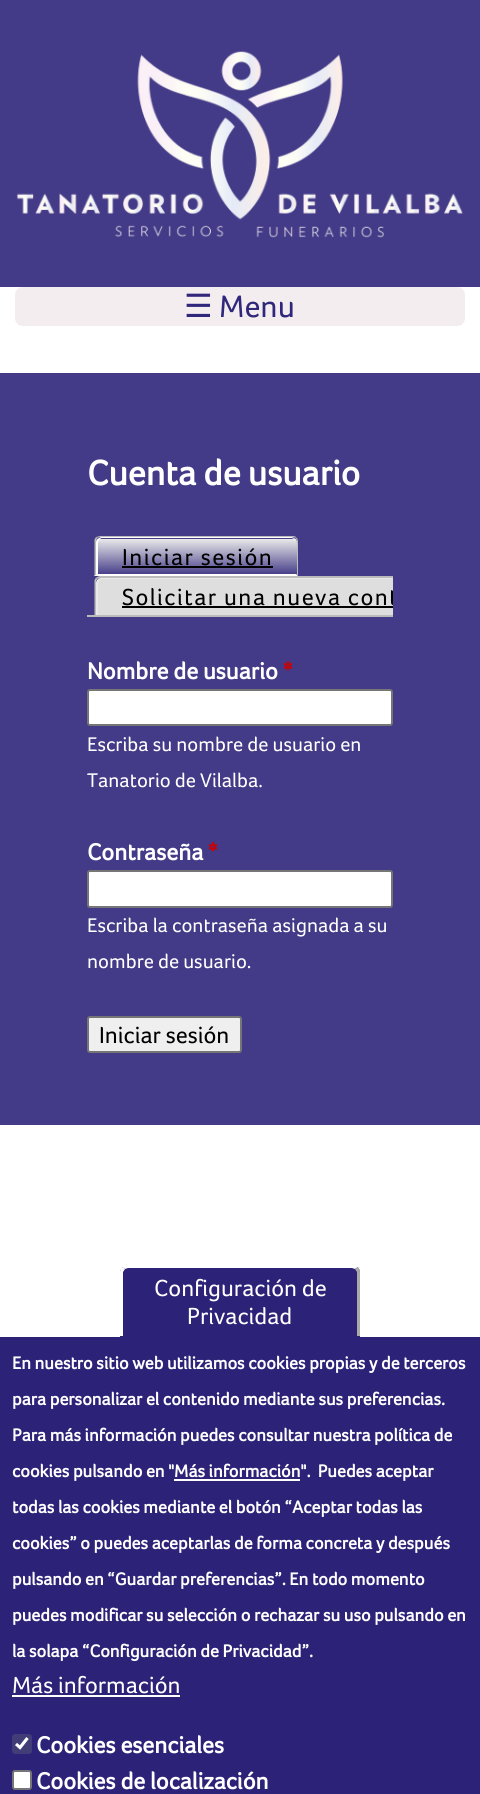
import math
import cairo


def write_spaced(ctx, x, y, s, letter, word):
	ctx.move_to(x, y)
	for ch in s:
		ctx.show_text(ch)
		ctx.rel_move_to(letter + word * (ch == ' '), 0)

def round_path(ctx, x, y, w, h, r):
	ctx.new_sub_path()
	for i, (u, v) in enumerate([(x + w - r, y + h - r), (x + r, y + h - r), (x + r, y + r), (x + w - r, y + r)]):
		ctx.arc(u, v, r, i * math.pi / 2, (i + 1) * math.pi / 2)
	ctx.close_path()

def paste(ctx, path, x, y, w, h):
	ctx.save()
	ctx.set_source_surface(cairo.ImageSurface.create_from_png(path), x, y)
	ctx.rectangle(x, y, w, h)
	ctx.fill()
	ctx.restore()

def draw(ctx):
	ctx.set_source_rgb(1, 1, 1)
	ctx.paint()
	ctx.set_source_rgb(0.263, 0.231, 0.529)
	ctx.rectangle(0, 0, 480, 287)
	ctx.fill()
	paste(ctx, 'media/1.png', 16, 51, 447, 187)
	ctx.set_source_rgb(0.953, 0.929, 0.937)
	round_path(ctx, 15, 287, 450, 39, 8)
	ctx.fill()
	ctx.select_font_face('DejaVu Sans')
	ctx.set_font_size(32)
	ctx.set_source_rgb(0.184, 0.153, 0.486)
	ctx.move_to(184, 317)
	ctx.show_text('☰')
	ctx.select_font_face('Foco')
	ctx.move_to(219, 317)
	ctx.show_text('Menu')
	ctx.set_source_rgb(0.263, 0.231, 0.529)
	ctx.rectangle(0, 373, 480, 752)
	ctx.fill()
	ctx.select_font_face('Foco', cairo.FONT_SLANT_NORMAL, cairo.FONT_WEIGHT_BOLD)
	ctx.set_font_size(36)
	ctx.set_source_rgb(1, 1, 1)
	ctx.move_to(87, 485)
	ctx.show_text('Cuenta de usuario')
	ctx.set_source_rgb(0.733, 0.733, 0.733)
	ctx.rectangle(87, 615, 306, 2)
	ctx.fill()
	ctx.new_path()
	ctx.move_to(100, 536)
	ctx.line_to(96, 537)
	ctx.line_to(97, 538)
	ctx.line_to(100, 537)
	ctx.line_to(293, 537)
	ctx.line_to(296, 538)
	ctx.curve_to(296, 536, 294, 536, 292, 536)
	ctx.close_path()
	ctx.fill()
	ctx.new_path()
	ctx.move_to(298, 575.5)
	ctx.line_to(298, 542)
	ctx.curve_to(298, 540, 297.5, 538.5, 296.5, 537.5)
	ctx.line_to(295.5, 538.5)
	ctx.curve_to(296.5, 539, 297, 540.5, 297, 542)
	ctx.line_to(297, 574)
	ctx.line_to(296.5, 574)
	ctx.close_path()
	ctx.fill()
	ctx.set_source_rgb(1, 1, 1)
	ctx.new_path()
	ctx.move_to(94, 576)
	ctx.line_to(298, 576)
	ctx.line_to(296, 574)
	ctx.line_to(96, 574)
	ctx.close_path()
	ctx.fill()
	ctx.set_source_rgb(0.733, 0.733, 0.733)
	ctx.new_path()
	ctx.move_to(94.5, 576)
	ctx.line_to(96.5, 574)
	ctx.line_to(96, 574)
	ctx.line_to(96, 542)
	ctx.curve_to(96, 540.5, 96.5, 539, 97.5, 538.5)
	ctx.line_to(96, 537)
	ctx.line_to(94.5, 539.5)
	ctx.close_path()
	ctx.fill()
	ctx.save()
	ctx.new_path()
	ctx.move_to(102, 537)
	ctx.line_to(291, 537)
	ctx.curve_to(294.5, 537, 297, 539.5, 297, 543)
	ctx.line_to(297, 575)
	ctx.line_to(96, 575)
	ctx.line_to(96, 543)
	ctx.curve_to(96, 539.5, 98.5, 537, 102, 537)
	ctx.close_path()
	ctx.clip()
	gradient = cairo.LinearGradient(197, 503, 197, 539)
	gradient.add_color_stop_rgba(0, 0.914, 0.914, 0.914, 1)
	gradient.add_color_stop_rgba(1, 0.263, 0.231, 0.529, 1)
	ctx.set_source(gradient)
	ctx.rectangle(96, 537, 201, 2)
	ctx.fill()
	gradient = cairo.LinearGradient(197, 539, 197, 575)
	gradient.add_color_stop_rgba(0, 0.914, 0.914, 0.914, 1)
	gradient.add_color_stop_rgba(1, 0.914, 0.914, 0.914, 0)
	ctx.set_source(gradient)
	ctx.rectangle(96, 539, 201, 35)
	ctx.fill()
	ctx.restore()
	ctx.set_source_rgb(1, 1, 1)
	ctx.set_fill_rule(cairo.FILL_RULE_EVEN_ODD)
	ctx.new_path()
	ctx.move_to(102, 537)
	ctx.line_to(291, 537)
	ctx.curve_to(294, 537, 297, 540, 297, 543)
	ctx.line_to(297, 574)
	ctx.line_to(96, 574)
	ctx.line_to(96, 543)
	ctx.curve_to(96, 540, 99, 537, 102, 537)
	ctx.close_path()
	ctx.move_to(102, 538)
	ctx.line_to(291, 538)
	ctx.curve_to(294, 538, 297, 541, 297, 543)
	ctx.line_to(297, 574)
	ctx.line_to(98, 574)
	ctx.line_to(98, 543)
	ctx.curve_to(98, 541, 100, 538, 102, 538)
	ctx.close_path()
	ctx.fill()
	ctx.select_font_face('Foco')
	ctx.set_font_size(24)
	ctx.set_source_rgb(0, 0, 0)
	write_spaced(ctx, 122, 565, 'Iniciar sesión', 1.5, 0)
	ctx.rectangle(122, 566, 151, 2)
	ctx.fill()
	ctx.save()
	ctx.set_fill_rule(cairo.FILL_RULE_WINDING)
	ctx.rectangle(87, 536, 306, 81)
	ctx.clip()
	ctx.set_source_rgb(0.733, 0.733, 0.733)
	ctx.new_path()
	ctx.move_to(100, 576)
	ctx.curve_to(99, 576, 97, 577, 96, 578)
	ctx.line_to(98, 579)
	ctx.line_to(100, 578)
	ctx.line_to(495, 578)
	ctx.line_to(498, 579)
	ctx.line_to(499, 578)
	ctx.curve_to(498, 577, 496, 576, 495, 576)
	ctx.close_path()
	ctx.fill()
	ctx.restore()
	ctx.set_source_rgb(0.733, 0.733, 0.733)
	ctx.set_fill_rule(cairo.FILL_RULE_WINDING)
	ctx.new_path()
	ctx.move_to(94.5, 580)
	ctx.line_to(96, 577.5)
	ctx.line_to(97.5, 579)
	ctx.curve_to(96.5, 580, 96, 581, 96, 582)
	ctx.line_to(96, 615)
	ctx.line_to(95, 616)
	ctx.line_to(94.5, 616)
	ctx.close_path()
	ctx.fill()
	ctx.set_source_rgb(0.871, 0.871, 0.871)
	ctx.new_path()
	ctx.move_to(102, 578)
	ctx.line_to(393, 578)
	ctx.line_to(393, 615)
	ctx.line_to(96, 615)
	ctx.line_to(96, 584)
	ctx.curve_to(96, 580.5, 98.5, 578, 102, 578)
	ctx.close_path()
	ctx.fill()
	ctx.save()
	ctx.rectangle(87, 536, 306, 81)
	ctx.clip()
	ctx.set_source_rgb(0.914, 0.914, 0.914)
	ctx.set_fill_rule(cairo.FILL_RULE_EVEN_ODD)
	ctx.new_path()
	ctx.move_to(102, 578)
	ctx.line_to(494, 578)
	ctx.curve_to(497, 578, 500, 580, 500, 584)
	ctx.line_to(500, 615)
	ctx.line_to(96, 615)
	ctx.line_to(96, 584)
	ctx.curve_to(96, 580, 99, 578, 102, 578)
	ctx.close_path()
	ctx.move_to(102, 579)
	ctx.line_to(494, 579)
	ctx.curve_to(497, 579, 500, 581, 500, 584)
	ctx.line_to(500, 615)
	ctx.line_to(98, 615)
	ctx.line_to(98, 584)
	ctx.curve_to(98, 581, 100, 579, 102, 579)
	ctx.close_path()
	ctx.fill()
	ctx.set_source_rgb(0, 0, 0)
	write_spaced(ctx, 122, 605, 'Solicitar una nueva cont', 1.5, 0)
	ctx.restore()
	ctx.set_source_rgb(0, 0, 0)
	ctx.rectangle(122, 606, 271, 2)
	ctx.fill()
	ctx.select_font_face('Foco', cairo.FONT_SLANT_NORMAL, cairo.FONT_WEIGHT_BOLD)
	ctx.set_source_rgb(1, 1, 1)
	ctx.move_to(87, 679)
	ctx.show_text('Nombre de usuario')
	ctx.set_source_rgb(0.8, 0, 0)
	ctx.move_to(283, 679)
	ctx.show_text('*')
	ctx.set_source_rgb(1, 1, 1)
	round_path(ctx, 88, 690, 304, 35, 2)
	ctx.fill_preserve()
	ctx.set_source_rgb(0.463, 0.463, 0.463)
	ctx.stroke()
	ctx.select_font_face('Foco')
	ctx.set_font_size(20.4)
	ctx.set_source_rgb(1, 1, 1)
	ctx.move_to(87, 751)
	ctx.show_text('Escriba su nombre de usuario en')
	ctx.move_to(87, 787)
	ctx.show_text('Tanatorio de Vilalba.')
	ctx.select_font_face('Foco', cairo.FONT_SLANT_NORMAL, cairo.FONT_WEIGHT_BOLD)
	ctx.set_font_size(24)
	ctx.move_to(87, 860)
	ctx.show_text('Contraseña')
	ctx.set_source_rgb(0.8, 0, 0)
	ctx.move_to(208, 860)
	ctx.show_text('*')
	ctx.set_source_rgb(1, 1, 1)
	round_path(ctx, 88, 871, 304, 36, 2)
	ctx.fill_preserve()
	ctx.set_source_rgb(0.463, 0.463, 0.463)
	ctx.stroke()
	ctx.select_font_face('Foco')
	ctx.set_font_size(20.4)
	ctx.set_source_rgb(1, 1, 1)
	ctx.move_to(87, 932)
	ctx.show_text('Escriba la contraseña asignada a su')
	ctx.move_to(87, 968)
	ctx.show_text('nombre de usuario.')
	ctx.set_source_rgb(0.937, 0.937, 0.937)
	round_path(ctx, 88, 1017, 153, 35, 2)
	ctx.fill_preserve()
	ctx.set_source_rgb(0.463, 0.463, 0.463)
	ctx.stroke()
	ctx.set_font_size(24)
	ctx.set_source_rgb(0, 0, 0)
	ctx.move_to(99, 1043)
	ctx.show_text('Iniciar sesión')
	ctx.set_source_rgb(0.173, 0.137, 0.471)
	ctx.rectangle(0, 1337, 480, 457)
	ctx.fill()
	ctx.new_path()
	ctx.move_to(128, 1265)
	ctx.line_to(352, 1265)
	ctx.curve_to(356.5, 1265, 360, 1268.5, 360, 1273)
	ctx.line_to(360, 1337)
	ctx.line_to(120, 1337)
	ctx.line_to(120, 1273)
	ctx.curve_to(120, 1268.5, 123.5, 1265, 128, 1265)
	ctx.close_path()
	ctx.fill()
	ctx.set_source_rgb(1, 1, 1)
	ctx.new_path()
	ctx.move_to(128, 1268)
	ctx.line_to(125, 1269)
	ctx.line_to(122, 1267)
	ctx.line_to(125, 1264)
	ctx.line_to(355, 1264)
	ctx.line_to(358, 1267)
	ctx.line_to(355, 1269)
	ctx.line_to(352, 1268)
	ctx.close_path()
	ctx.fill()
	ctx.set_source_rgb(0.667, 0.667, 0.667)
	ctx.new_path()
	ctx.move_to(360, 1336)
	ctx.line_to(360, 1272)
	ctx.curve_to(360, 1270, 359, 1268, 358, 1267)
	ctx.line_to(355, 1269)
	ctx.line_to(357, 1272)
	ctx.line_to(357, 1336)
	ctx.close_path()
	ctx.fill()
	ctx.set_source_rgb(1, 1, 1)
	ctx.new_path()
	ctx.move_to(120, 1272)
	ctx.line_to(120, 1336)
	ctx.line_to(123, 1336)
	ctx.line_to(123, 1272)
	ctx.line_to(125, 1269)
	ctx.line_to(122, 1267)
	ctx.curve_to(121, 1268, 120, 1270, 120, 1272)
	ctx.close_path()
	ctx.fill()
	ctx.move_to(154, 1296)
	ctx.show_text('Configuración de')
	ctx.move_to(187, 1324)
	ctx.show_text('Privacidad')
	ctx.select_font_face('Foco', cairo.FONT_SLANT_NORMAL, cairo.FONT_WEIGHT_BOLD)
	ctx.set_font_size(18)
	for x, y, s in [
		(12, 1369, 'En nuestro sitio web utilizamos cookies propias y de terceros'),
		(12, 1405, 'para personalizar el contenido mediante sus preferencias.'),
		(12, 1441, 'Para más información puedes consultar nuestra política de'),
		(12, 1477, 'cookies pulsando en "Más información".  Puedes aceptar'),
	]:
		ctx.move_to(x, y)
		ctx.show_text(s)
	ctx.rectangle(174, 1479, 126, 2)
	ctx.fill()
	for x, y, s in [
		(12, 1513, 'todas las cookies mediante el botón “Aceptar todas las'),
		(12, 1549, 'cookies” o puedes aceptarlas de forma concreta y después'),
		(12, 1585, 'pulsando en “Guardar preferencias”. En todo momento'),
		(12, 1621, 'puedes modificar su selección o rechazar su uso pulsando en'),
		(12, 1657, 'la solapa “Configuración de Privacidad”.'),
	]:
		ctx.move_to(x, y)
		ctx.show_text(s)
	ctx.select_font_face('Foco')
	ctx.set_font_size(24)
	ctx.move_to(12, 1693)
	ctx.show_text('Más información')
	ctx.rectangle(12, 1695, 168, 2)
	ctx.fill()
	ctx.set_source_rgb(0.259, 0.235, 0.467)
	round_path(ctx, 12, 1734, 20, 20, 3)
	ctx.fill()
	ctx.new_path()
	ctx.move_to(16, 1744)
	ctx.line_to(20, 1747.5)
	ctx.line_to(27.5, 1738)
	ctx.set_source_rgb(1, 1, 1)
	ctx.set_line_width(3.1)
	ctx.stroke()
	ctx.select_font_face('Foco', cairo.FONT_SLANT_NORMAL, cairo.FONT_WEIGHT_BOLD)
	ctx.move_to(36, 1753)
	ctx.show_text('Cookies esenciales')
	round_path(ctx, 13, 1771, 18, 18, 2)
	ctx.fill_preserve()
	ctx.set_source_rgb(0.463, 0.463, 0.463)
	ctx.set_line_width(2)
	ctx.stroke()
	ctx.set_source_rgb(1, 1, 1)
	ctx.move_to(36, 1789)
	ctx.show_text('Cookies de localización')


surface = cairo.ImageSurface(cairo.FORMAT_RGB24, 480, 1794)
ctx = cairo.Context(surface)
options = cairo.FontOptions()
options.set_hint_metrics(cairo.HINT_METRICS_OFF)
options.set_hint_style(cairo.HINT_STYLE_NONE)
ctx.set_font_options(options)
ctx.set_miter_limit(4)
draw(ctx)
surface.write_to_png('image.png')
